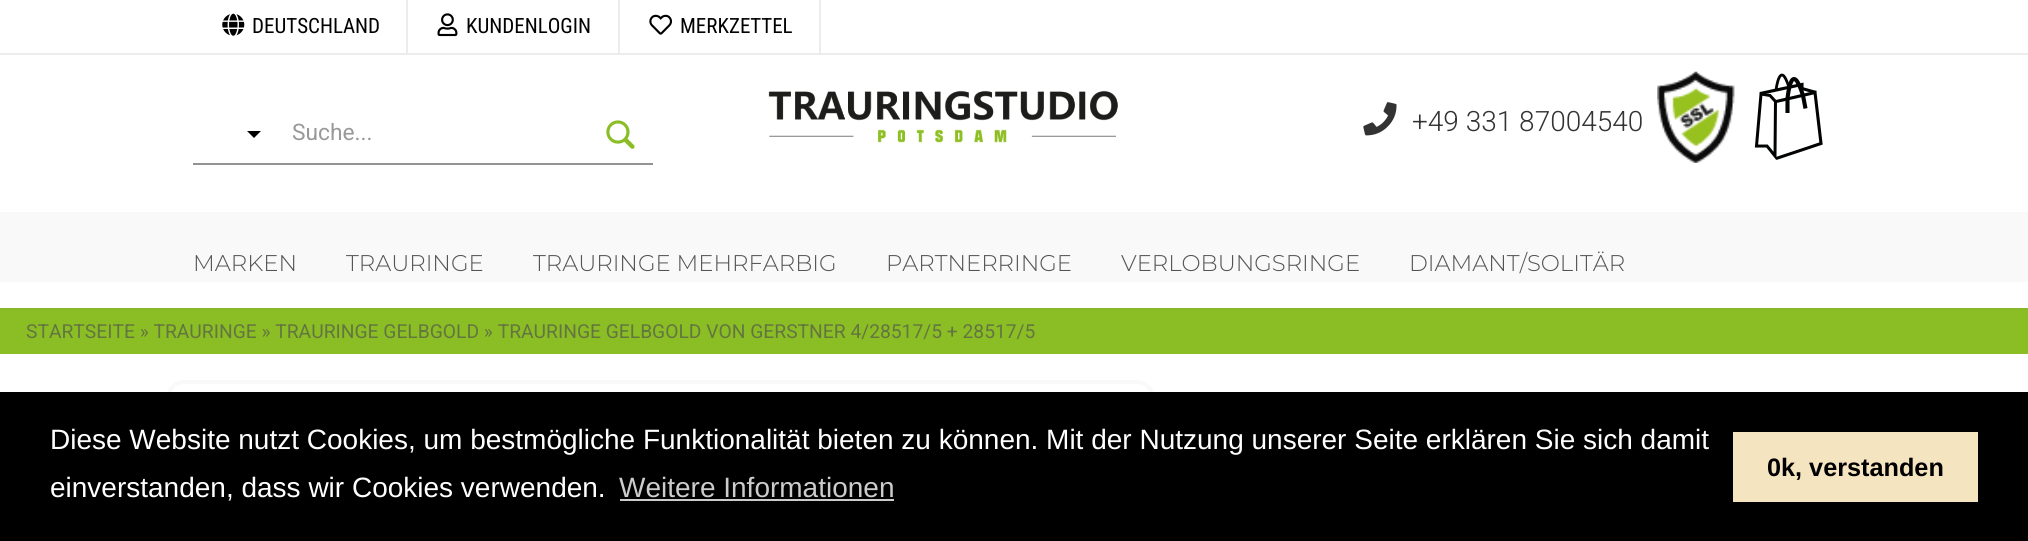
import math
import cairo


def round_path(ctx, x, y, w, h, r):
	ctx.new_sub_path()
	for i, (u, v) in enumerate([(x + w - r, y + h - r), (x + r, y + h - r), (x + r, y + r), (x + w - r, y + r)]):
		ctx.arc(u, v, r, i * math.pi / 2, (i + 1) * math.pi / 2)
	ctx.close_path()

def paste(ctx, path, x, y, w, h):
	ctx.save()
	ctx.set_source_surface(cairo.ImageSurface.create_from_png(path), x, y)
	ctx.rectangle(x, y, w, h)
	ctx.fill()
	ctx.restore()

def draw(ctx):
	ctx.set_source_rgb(1, 1, 1)
	ctx.paint()
	ctx.set_source_rgb(0.922, 0.922, 0.922)
	ctx.rectangle(0, 53, 2028, 2)
	ctx.fill()
	ctx.rectangle(406, 0, 2, 53)
	ctx.fill()
	paste(ctx, 'media/1.png', 222, 13, 23, 23)
	ctx.select_font_face('Roboto Condensed')
	ctx.set_font_size(21)
	ctx.set_source_rgb(0, 0, 0)
	ctx.move_to(252, 33)
	ctx.show_text('DEUTSCHLAND')
	ctx.set_source_rgb(0.922, 0.922, 0.922)
	ctx.rectangle(618, 0, 2, 53)
	ctx.fill()
	paste(ctx, 'media/2.png', 437, 13, 21, 24)
	ctx.set_source_rgb(0, 0, 0)
	ctx.move_to(466, 33)
	ctx.show_text('KUNDENLOGIN')
	ctx.set_source_rgb(0.922, 0.922, 0.922)
	ctx.rectangle(819, 0, 2, 53)
	ctx.fill()
	paste(ctx, 'media/3.png', 649, 14, 23, 21)
	ctx.set_source_rgb(0, 0, 0)
	ctx.move_to(680, 33)
	ctx.show_text('MERKZETTEL')
	ctx.select_font_face('Roboto')
	ctx.set_font_size(22.75)
	ctx.set_source_rgb(0.6, 0.6, 0.6)
	ctx.move_to(292, 140)
	ctx.show_text('Suche...')
	paste(ctx, 'media/4.png', 606, 120, 29, 29)
	ctx.set_source_rgb(0.58, 0.576, 0.576)
	ctx.rectangle(193, 163, 460, 2)
	ctx.fill()
	ctx.set_source_rgb(0, 0, 0)
	ctx.new_path()
	ctx.move_to(247, 131)
	ctx.line_to(261, 131)
	ctx.line_to(254, 138)
	ctx.close_path()
	ctx.fill()
	paste(ctx, 'media/5.png', 768, 90, 350, 53)
	paste(ctx, 'media/6.png', 1363, 102, 34, 34)
	ctx.select_font_face('Roboto Light')
	ctx.set_font_size(28)
	ctx.set_source_rgb(0.2, 0.2, 0.2)
	ctx.move_to(1412, 131)
	ctx.show_text('+49 331 87004540')
	paste(ctx, 'media/7.png', 1657, 71, 78, 92)
	ctx.new_path()
	ctx.move_to(1756.5, 146)
	ctx.line_to(1767, 146)
	ctx.line_to(1775, 156)
	ctx.line_to(1775.5, 101.5)
	ctx.line_to(1770, 95.5)
	ctx.line_to(1761, 94)
	ctx.close_path()
	ctx.set_source_rgb(0.004, 0.008, 0.008)
	ctx.set_line_width(3)
	ctx.stroke()
	ctx.new_path()
	ctx.move_to(1776, 101.5)
	ctx.line_to(1815, 92.5)
	ctx.line_to(1821, 143.5)
	ctx.line_to(1776, 158.5)
	ctx.set_line_width(3.1)
	ctx.stroke()
	ctx.new_path()
	ctx.move_to(1760, 93.5)
	ctx.line_to(1802, 84.5)
	ctx.line_to(1802, 88.5)
	ctx.line_to(1816, 92.5)
	ctx.stroke()
	ctx.new_path()
	ctx.move_to(1776, 90)
	ctx.curve_to(1776, 90, 1780, 58, 1789, 87.5)
	ctx.set_line_width(2.8)
	ctx.stroke()
	ctx.new_path()
	ctx.move_to(1787.5, 113)
	ctx.line_to(1787.5, 99)
	ctx.curve_to(1787.5, 99, 1791, 56.5, 1803, 95.5)
	ctx.line_to(1805.5, 108.5)
	ctx.set_line_width(4.1)
	ctx.stroke()
	ctx.set_source_rgb(0.973, 0.973, 0.973)
	ctx.rectangle(0, 212, 2028, 70)
	ctx.fill()
	ctx.select_font_face('Montserrat Light')
	ctx.set_font_size(22.75)
	ctx.set_source_rgb(0.329, 0.329, 0.329)
	for x, y, s in [
		(193, 271, 'MARKEN'),
		(346, 271, 'TRAURINGE'),
		(533, 271, 'TRAURINGE MEHRFARBIG'),
		(886, 271, 'PARTNERRINGE'),
		(1121, 271, 'VERLOBUNGSRINGE'),
		(1409, 271, 'DIAMANT/SOLITÄR'),
	]:
		ctx.move_to(x, y)
		ctx.show_text(s)
	ctx.set_source_rgb(0.545, 0.741, 0.145)
	ctx.rectangle(0, 310, 2028, 44)
	ctx.fill()
	ctx.set_source_rgb(0.533, 0.722, 0.153)
	ctx.rectangle(0, 308, 2028, 2)
	ctx.fill()
	ctx.select_font_face('Roboto')
	ctx.set_font_size(19.25)
	ctx.set_source_rgb(0.392, 0.463, 0.251)
	ctx.move_to(26, 338)
	ctx.show_text('STARTSEITE » TRAURINGE » TRAURINGE GELBGOLD » TRAURINGE GELBGOLD VON GERSTNER 4/28517/5 + 28517/5')
	round_path(ctx, 168, 382, 985, 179, 16)
	ctx.set_source_rgb(0.973, 0.973, 0.973)
	ctx.set_line_width(4)
	ctx.stroke()
	ctx.set_source_rgb(0, 0, 0)
	ctx.rectangle(0, 392, 2028, 149)
	ctx.fill()
	ctx.select_font_face('Liberation Sans')
	ctx.set_font_size(28)
	ctx.set_source_rgb(1, 1, 1)
	ctx.move_to(50, 449)
	ctx.show_text('Diese Website nutzt Cookies, um bestmögliche Funktionalität bieten zu können. Mit der Nutzung unserer Seite erklären Sie sich damit')
	ctx.move_to(50, 497)
	ctx.show_text('einverstanden, dass wir Cookies verwenden.')
	ctx.set_source_rgb(0.8, 0.8, 0.8)
	ctx.move_to(619, 497)
	ctx.show_text('Weitere Informationen')
	ctx.rectangle(620, 499, 274, 2)
	ctx.fill()
	ctx.set_source_rgb(0.957, 0.894, 0.753)
	ctx.rectangle(1733, 432, 245, 70)
	ctx.fill()
	ctx.select_font_face('Liberation Sans', cairo.FONT_SLANT_NORMAL, cairo.FONT_WEIGHT_BOLD)
	ctx.set_font_size(25.25)
	ctx.set_source_rgb(0, 0, 0)
	ctx.move_to(1767, 476)
	ctx.show_text('0k, verstanden')


surface = cairo.ImageSurface(cairo.FORMAT_RGB24, 2028, 541)
ctx = cairo.Context(surface)
options = cairo.FontOptions()
options.set_hint_metrics(cairo.HINT_METRICS_OFF)
options.set_hint_style(cairo.HINT_STYLE_NONE)
ctx.set_font_options(options)
ctx.set_miter_limit(4)
draw(ctx)
surface.write_to_png('image.png')
